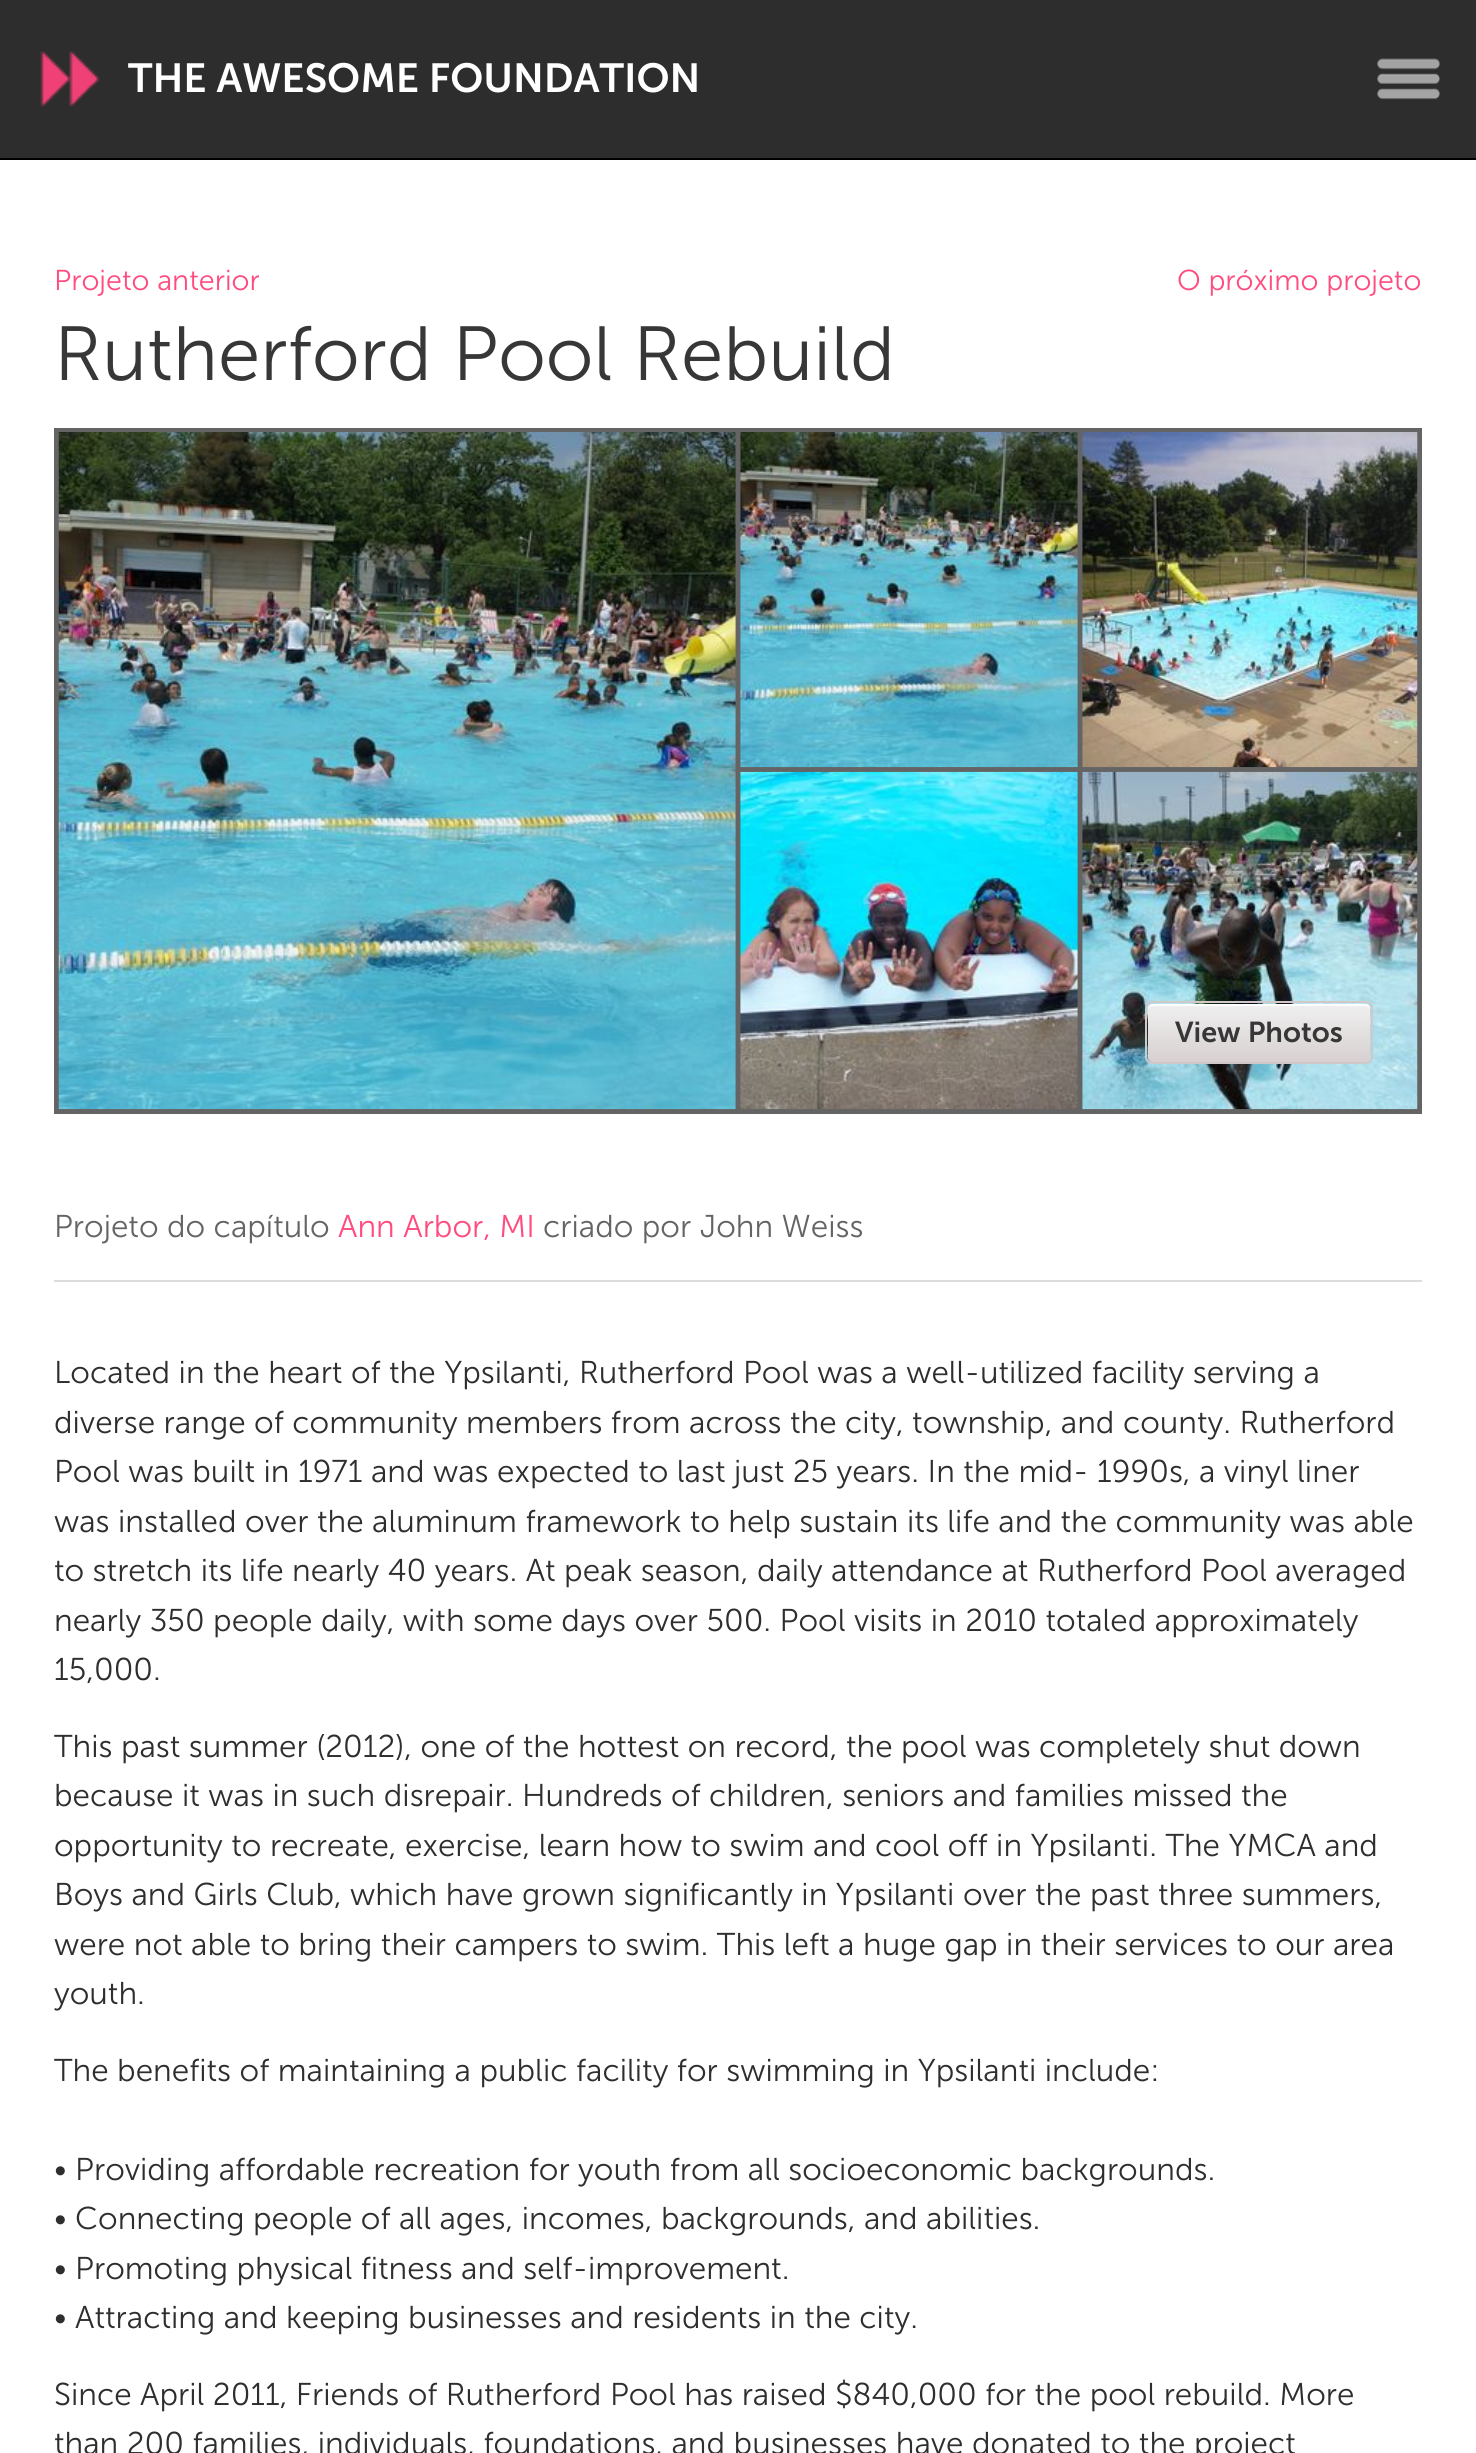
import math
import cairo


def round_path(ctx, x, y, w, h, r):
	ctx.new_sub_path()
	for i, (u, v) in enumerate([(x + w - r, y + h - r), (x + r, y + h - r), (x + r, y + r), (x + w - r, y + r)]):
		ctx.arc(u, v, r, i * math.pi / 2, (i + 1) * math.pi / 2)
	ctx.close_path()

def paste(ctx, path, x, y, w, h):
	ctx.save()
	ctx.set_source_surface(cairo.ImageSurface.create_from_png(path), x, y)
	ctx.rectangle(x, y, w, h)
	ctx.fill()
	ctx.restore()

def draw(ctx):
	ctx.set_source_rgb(1, 1, 1)
	ctx.paint()
	ctx.set_source_rgb(0.176, 0.176, 0.176)
	ctx.rectangle(0, 0, 1476, 158)
	ctx.fill()
	ctx.set_source_rgb(0, 0, 0)
	ctx.rectangle(0, 158, 1476, 2)
	ctx.fill()
	paste(ctx, 'media/1.png', 40, 51, 60, 56)
	ctx.select_font_face('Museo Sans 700 SemiBold')
	ctx.set_font_size(40.5)
	ctx.set_source_rgb(1, 1, 1)
	ctx.move_to(128, 92)
	ctx.show_text('THE AWESOME FOUNDATION')
	paste(ctx, 'media/2.png', 1377, 58, 63, 42)
	ctx.select_font_face('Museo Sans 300 Light')
	ctx.set_font_size(28.75)
	ctx.set_source_rgb(1, 0.294, 0.494)
	ctx.move_to(54, 290)
	ctx.show_text('Projeto anterior')
	ctx.move_to(1177, 290)
	ctx.show_text('O próximo projeto')
	ctx.set_font_size(76.5)
	ctx.set_source_rgb(0.216, 0.216, 0.216)
	ctx.move_to(54, 380)
	ctx.show_text('Rutherford Pool Rebuild')
	ctx.set_source_rgb(0.392, 0.392, 0.392)
	ctx.rectangle(54, 428, 1368, 686)
	ctx.fill()
	paste(ctx, 'media/3.png', 58, 432, 678, 678)
	paste(ctx, 'media/4.png', 740, 432, 338, 336)
	paste(ctx, 'media/5.png', 1082, 432, 336, 336)
	paste(ctx, 'media/6.png', 740, 771, 338, 339)
	paste(ctx, 'media/7.png', 1082, 771, 336, 339)
	gradient = cairo.LinearGradient(1259, 1004, 1259, 1062)
	gradient.add_color_stop_rgba(0, 0.941, 0.941, 0.941, 1)
	gradient.add_color_stop_rgba(1, 0.847, 0.816, 0.816, 1)
	ctx.set_source(gradient)
	round_path(ctx, 1148, 1004, 222, 58, 5)
	ctx.fill()
	ctx.set_source_rgb(1, 1, 1)
	ctx.new_path()
	ctx.move_to(1152, 1006)
	ctx.line_to(1366, 1006)
	ctx.curve_to(1368, 1006, 1370, 1008, 1370, 1010)
	ctx.line_to(1370, 1009)
	ctx.curve_to(1370, 1006, 1368, 1004, 1365, 1004)
	ctx.line_to(1153, 1004)
	ctx.curve_to(1150, 1004, 1148, 1006, 1148, 1009)
	ctx.line_to(1148, 1010)
	ctx.curve_to(1148, 1008, 1150, 1006, 1152, 1006)
	ctx.close_path()
	ctx.fill()
	round_path(ctx, 1146, 1002, 226, 61, 6)
	ctx.set_source_rgb(0.82, 0.784, 0.784)
	ctx.stroke()
	ctx.select_font_face('Museo Sans 700 SemiBold')
	ctx.set_font_size(28.75)
	ctx.set_source_rgb(0.216, 0.216, 0.216)
	ctx.move_to(1175, 1042)
	ctx.show_text('View Photos')
	ctx.set_source_rgb(0.863, 0.863, 0.863)
	ctx.rectangle(54, 1280, 1368, 2)
	ctx.fill()
	ctx.select_font_face('Museo Sans 300 Light')
	ctx.set_font_size(31.5)
	ctx.set_source_rgb(0.392, 0.392, 0.392)
	ctx.move_to(54, 1237)
	ctx.show_text('Projeto do capítulo')
	ctx.set_source_rgb(1, 0.294, 0.494)
	ctx.move_to(338, 1237)
	ctx.show_text('Ann Arbor, MI')
	ctx.set_source_rgb(0.392, 0.392, 0.392)
	ctx.move_to(543, 1237)
	ctx.show_text('criado por John Weiss')
	ctx.set_source_rgb(0.18, 0.18, 0.18)
	for x, y, s in [
		(54, 1383, 'Located in the heart of the Ypsilanti, Rutherford Pool was a well-utilized facility serving a'),
		(54, 1433, 'diverse range of community members from across the city, township, and county. Rutherford'),
		(54, 1482, 'Pool was built in 1971 and was expected to last just 25 years. In the mid- 1990s, a vinyl liner'),
		(54, 1532, 'was installed over the aluminum framework to help sustain its life and the community was able'),
		(54, 1581, 'to stretch its life nearly 40 years. At peak season, daily attendance at Rutherford Pool averaged'),
		(54, 1631, 'nearly 350 people daily, with some days over 500. Pool visits in 2010 totaled approximately'),
		(54, 1680, '15,000.'),
		(54, 1757, 'This past summer (2012), one of the hottest on record, the pool was completely shut down'),
		(54, 1806, 'because it was in such disrepair. Hundreds of children, seniors and families missed the'),
		(54, 1856, 'opportunity to recreate, exercise, learn how to swim and cool off in Ypsilanti. The YMCA and'),
		(54, 1905, 'Boys and Girls Club, which have grown significantly in Ypsilanti over the past three summers,'),
		(54, 1955, 'were not able to bring their campers to swim. This left a huge gap in their services to our area'),
		(54, 2004, 'youth.'),
		(54, 2081, 'The benefits of maintaining a public facility for swimming in Ypsilanti include:'),
		(54, 2180, '• Providing affordable recreation for youth from all socioeconomic backgrounds.'),
		(54, 2229, '• Connecting people of all ages, incomes, backgrounds, and abilities.'),
		(54, 2279, '• Promoting physical fitness and self-improvement.'),
		(54, 2328, '• Attracting and keeping businesses and residents in the city.'),
		(54, 2405, 'Since April 2011, Friends of Rutherford Pool has raised $840,000 for the pool rebuild. More'),
		(54, 2454, 'than 200 families, individuals, foundations, and businesses have donated to the project'),
	]:
		ctx.move_to(x, y)
		ctx.show_text(s)


surface = cairo.ImageSurface(cairo.FORMAT_RGB24, 1476, 2453)
ctx = cairo.Context(surface)
options = cairo.FontOptions()
options.set_hint_metrics(cairo.HINT_METRICS_OFF)
options.set_hint_style(cairo.HINT_STYLE_NONE)
ctx.set_font_options(options)
ctx.set_miter_limit(4)
draw(ctx)
surface.write_to_png('image.png')
